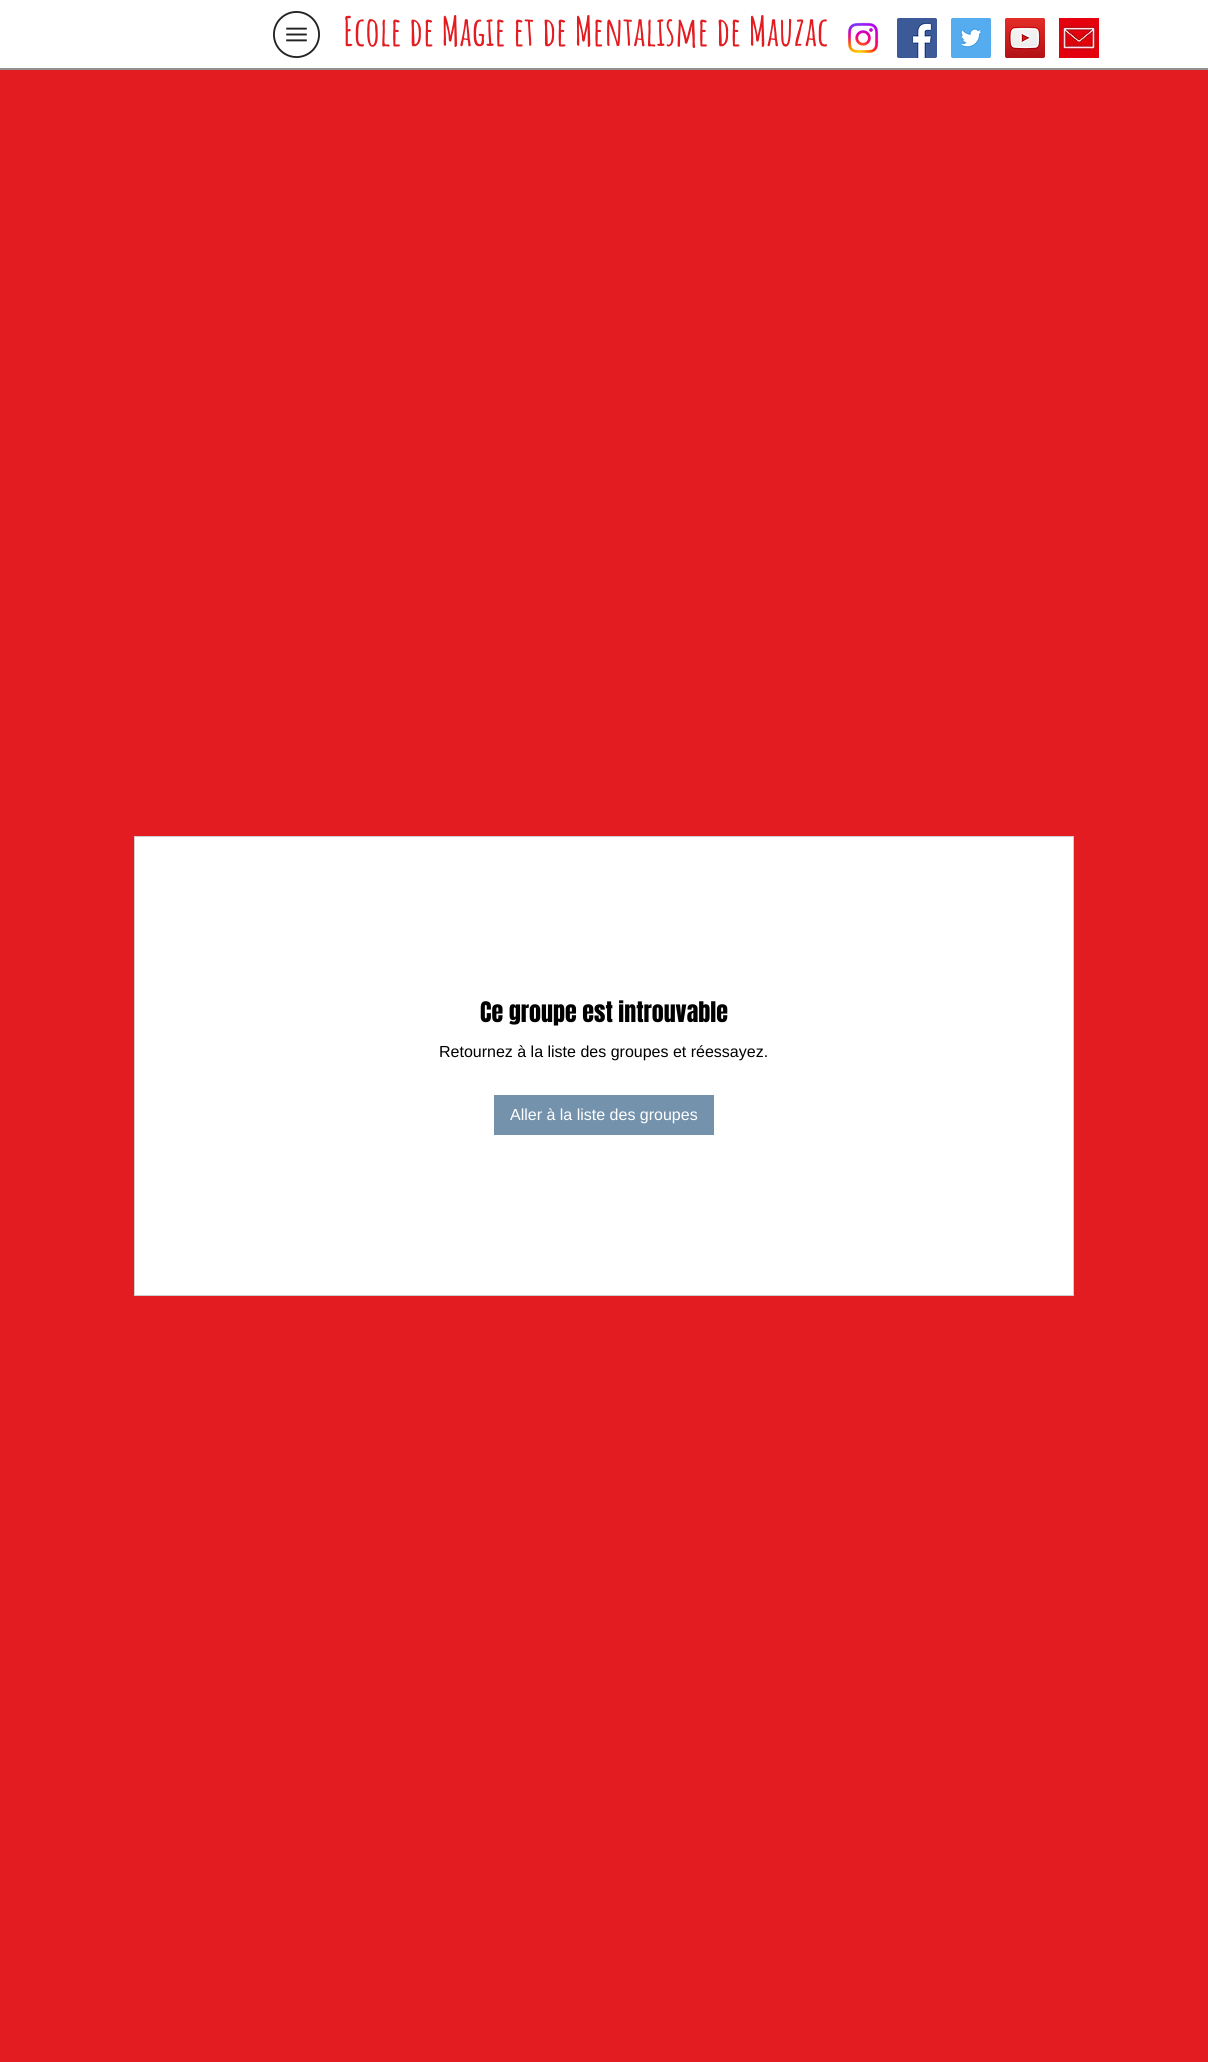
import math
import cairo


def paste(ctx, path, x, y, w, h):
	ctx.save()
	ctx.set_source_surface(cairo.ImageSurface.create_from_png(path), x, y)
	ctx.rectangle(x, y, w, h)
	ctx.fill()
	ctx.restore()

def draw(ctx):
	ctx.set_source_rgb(0.886, 0.11, 0.129)
	ctx.paint()
	ctx.set_source_rgb(1, 1, 1)
	ctx.rectangle(0, 0, 1208, 68)
	ctx.fill()
	ctx.set_source_rgb(0.565, 0.565, 0.565)
	ctx.rectangle(0, 68, 1208, 2)
	ctx.fill()
	paste(ctx, 'media/1.png', 273, 11, 47, 47)
	ctx.select_font_face('Amatic SC', cairo.FONT_SLANT_NORMAL, cairo.FONT_WEIGHT_BOLD)
	ctx.set_font_size(40)
	ctx.set_source_rgb(0.886, 0.11, 0.129)
	ctx.move_to(343, 46)
	ctx.show_text('Ecole de Magie et de Mentalisme de Mauzac')
	paste(ctx, 'media/2.png', 848, 22, 31, 31)
	paste(ctx, 'media/3.png', 897, 18, 40, 40)
	paste(ctx, 'media/4.png', 951, 18, 40, 40)
	paste(ctx, 'media/5.png', 1005, 18, 40, 40)
	paste(ctx, 'media/6.png', 1059, 18, 40, 40)
	ctx.set_source_rgb(1, 1, 1)
	ctx.rectangle(134.5, 836.5, 939, 459)
	ctx.fill_preserve()
	ctx.set_source_rgb(0.8, 0.8, 0.8)
	ctx.set_line_width(1)
	ctx.stroke()
	ctx.select_font_face('Anton')
	ctx.set_font_size(24)
	ctx.set_source_rgb(0, 0, 0)
	ctx.move_to(480, 1022)
	ctx.show_text('Ce groupe est introuvable')
	ctx.select_font_face('Liberation Sans')
	ctx.set_font_size(16)
	ctx.move_to(439, 1057)
	ctx.show_text('Retournez à la liste des groupes et réessayez.')
	ctx.set_source_rgb(0.459, 0.573, 0.678)
	ctx.rectangle(494, 1095, 220, 40)
	ctx.fill()
	ctx.set_source_rgb(1, 1, 1)
	ctx.move_to(510, 1120)
	ctx.show_text('Aller à la liste des groupes')


surface = cairo.ImageSurface(cairo.FORMAT_RGB24, 1208, 2062)
ctx = cairo.Context(surface)
options = cairo.FontOptions()
options.set_hint_metrics(cairo.HINT_METRICS_OFF)
options.set_hint_style(cairo.HINT_STYLE_NONE)
ctx.set_font_options(options)
ctx.set_miter_limit(4)
draw(ctx)
surface.write_to_png('image.png')
